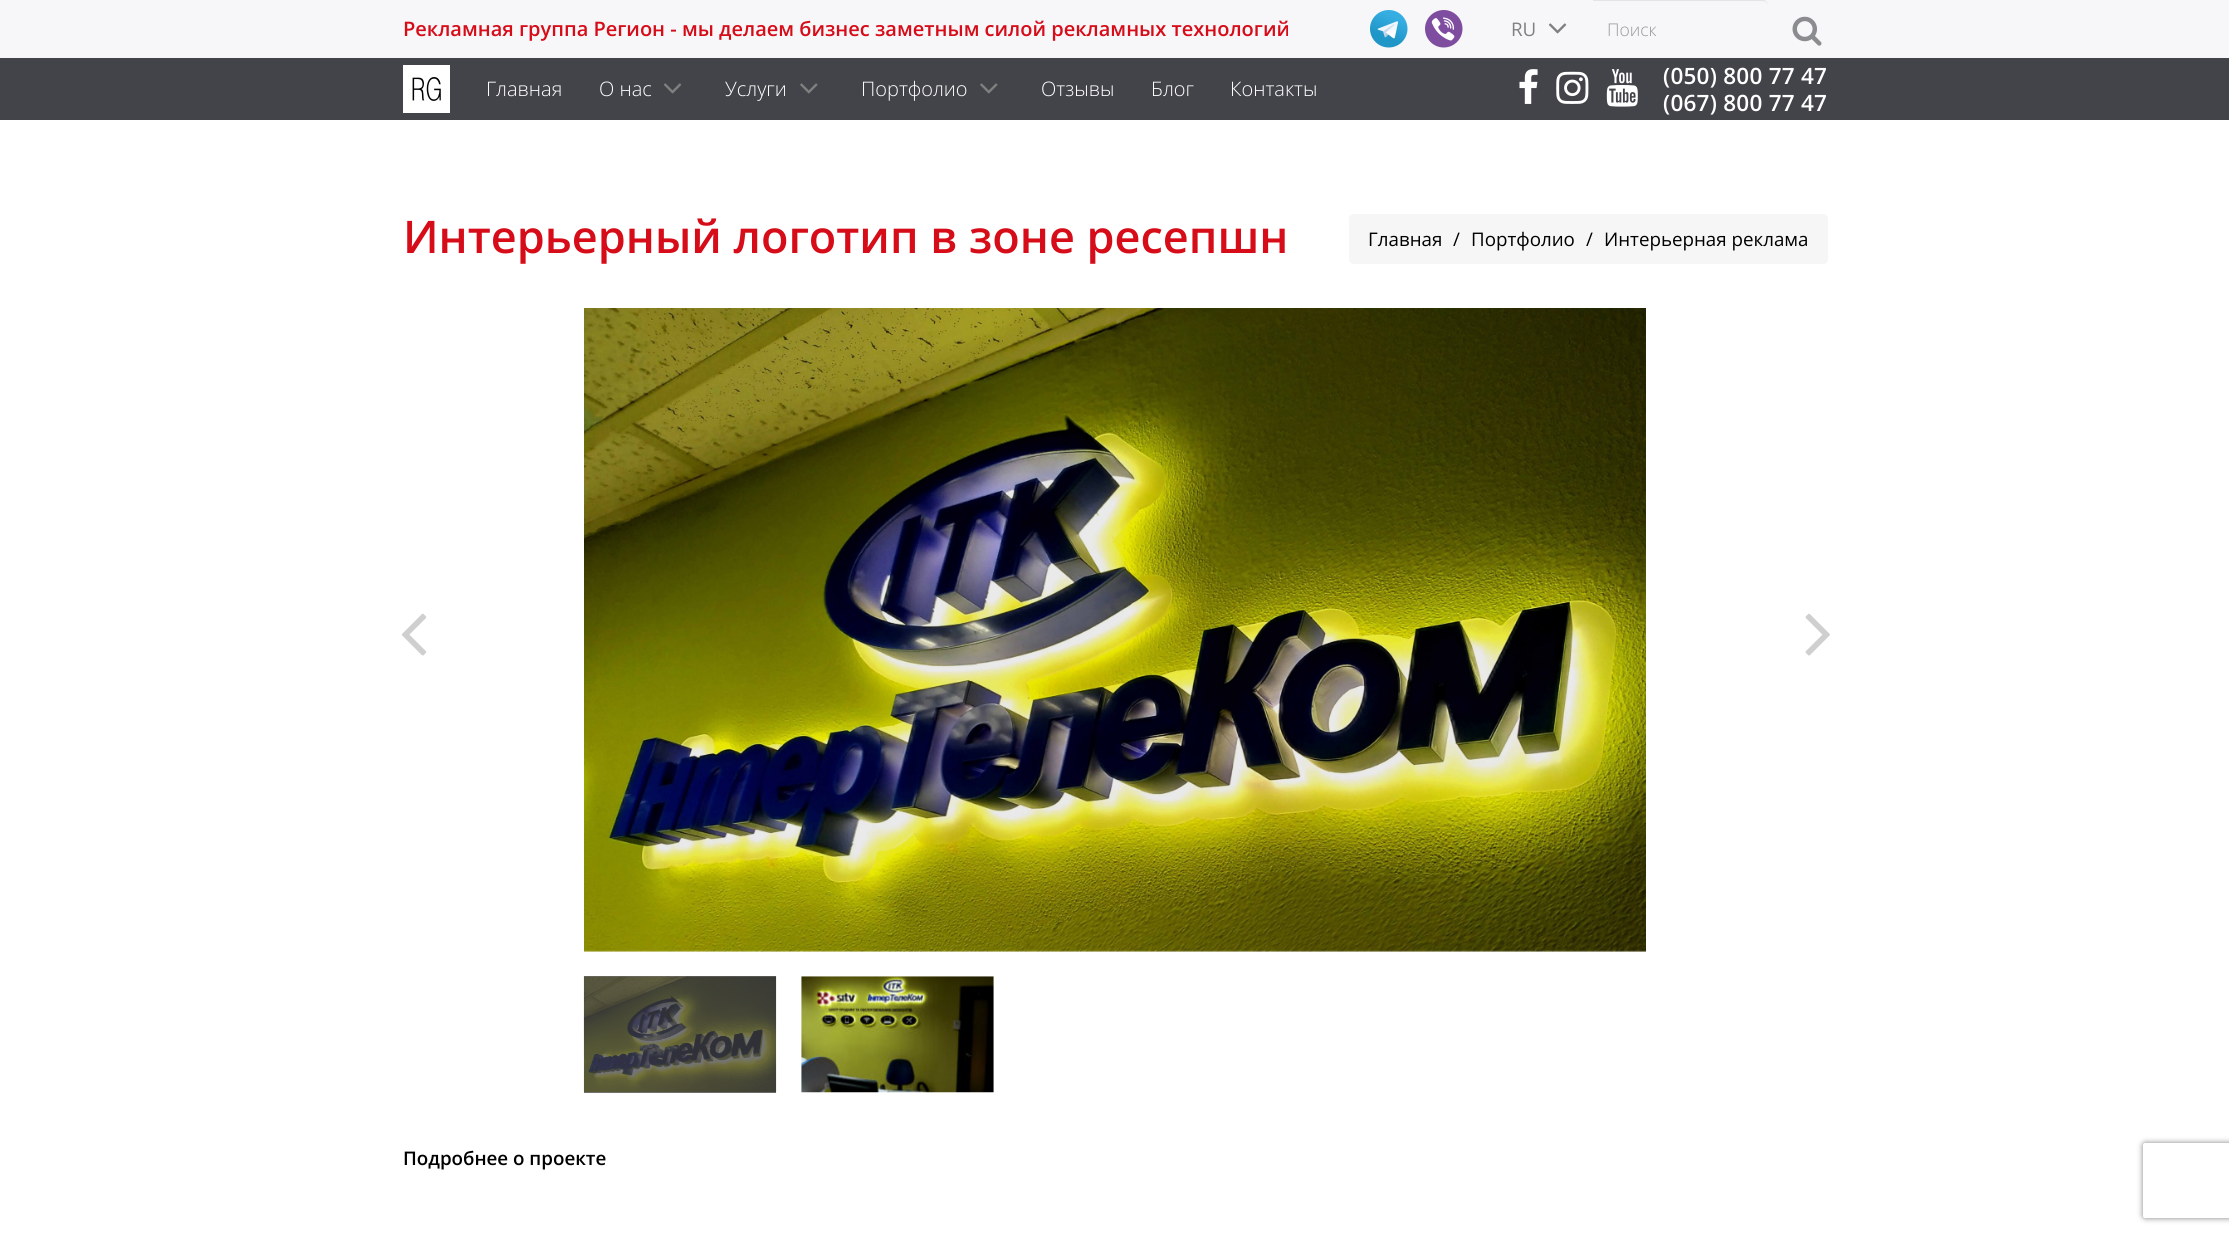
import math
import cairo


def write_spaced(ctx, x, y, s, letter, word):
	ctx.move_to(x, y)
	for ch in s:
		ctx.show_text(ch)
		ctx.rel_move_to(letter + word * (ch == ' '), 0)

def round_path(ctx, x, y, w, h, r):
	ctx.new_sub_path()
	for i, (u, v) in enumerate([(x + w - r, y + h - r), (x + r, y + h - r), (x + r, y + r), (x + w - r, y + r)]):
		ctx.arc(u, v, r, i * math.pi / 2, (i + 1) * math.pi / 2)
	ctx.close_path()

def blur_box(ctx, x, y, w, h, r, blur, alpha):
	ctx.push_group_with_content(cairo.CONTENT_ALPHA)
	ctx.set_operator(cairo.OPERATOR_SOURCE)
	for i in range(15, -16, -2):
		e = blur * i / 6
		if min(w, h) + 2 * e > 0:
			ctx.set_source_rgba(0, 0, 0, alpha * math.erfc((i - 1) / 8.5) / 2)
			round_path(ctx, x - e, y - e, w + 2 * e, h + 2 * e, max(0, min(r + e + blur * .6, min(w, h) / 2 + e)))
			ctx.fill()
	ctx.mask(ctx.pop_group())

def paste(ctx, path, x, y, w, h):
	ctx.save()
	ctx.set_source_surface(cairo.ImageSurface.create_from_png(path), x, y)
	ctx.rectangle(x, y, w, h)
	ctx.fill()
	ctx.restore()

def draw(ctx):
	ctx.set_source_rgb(1, 1, 1)
	ctx.paint()
	ctx.set_source_rgb(0.478, 0.478, 0.494)
	ctx.rectangle(584, 976, 192, 117)
	ctx.fill()
	ctx.set_source_rgb(0.965, 0.965, 0.973)
	ctx.rectangle(0, 0, 2229, 58)
	ctx.fill()
	ctx.select_font_face('Open Sans SemiBold')
	ctx.set_font_size(20)
	ctx.set_source_rgb(0.839, 0.047, 0.098)
	ctx.move_to(403, 36)
	ctx.show_text('Рекламная группа Регион - мы делаем бизнес заметным силой рекламных технологий')
	paste(ctx, 'media/1.png', 1370, 10, 38, 38)
	paste(ctx, 'media/2.png', 1425, 10, 38, 38)
	ctx.select_font_face('Open Sans')
	ctx.set_font_size(18.75)
	ctx.set_source_rgb(0.502, 0.502, 0.502)
	ctx.move_to(1511, 36)
	ctx.show_text('RU')
	paste(ctx, 'media/3.png', 1548, 23, 19, 11)
	ctx.set_source_rgb(0.894, 0.894, 0.898)
	ctx.new_path()
	ctx.move_to(1593, 0)
	ctx.line_to(1593, 1)
	ctx.line_to(1762, 1)
	ctx.curve_to(1765, 1, 1768, 3, 1768, 6)
	ctx.curve_to(1768, 3, 1766, 0, 1763, 0)
	ctx.close_path()
	ctx.fill()
	ctx.select_font_face('Open Sans Light')
	ctx.set_font_size(17.5)
	ctx.set_source_rgb(0.6, 0.6, 0.6)
	ctx.move_to(1607, 36)
	ctx.show_text('Поиск')
	paste(ctx, 'media/4.png', 1792, 16, 30, 30)
	ctx.set_source_rgb(0.263, 0.267, 0.29)
	ctx.rectangle(0, 58, 2229, 62)
	ctx.fill()
	paste(ctx, 'media/5.png', 403, 65, 47, 48)
	ctx.set_font_size(20)
	ctx.set_source_rgb(1, 1, 1)
	ctx.move_to(486, 96)
	ctx.show_text('Главная')
	ctx.move_to(599, 96)
	ctx.show_text('О нас')
	paste(ctx, 'media/6.png', 664, 83, 18, 11)
	ctx.move_to(725, 96)
	ctx.show_text('Услуги')
	paste(ctx, 'media/7.png', 800, 83, 18, 11)
	ctx.move_to(861, 96)
	ctx.show_text('Портфолио')
	paste(ctx, 'media/7.png', 980, 83, 18, 11)
	for x, y, s in [
		(1041, 96, 'Отзывы'),
		(1151, 96, 'Блог'),
		(1230, 96, 'Контакты'),
	]:
		ctx.move_to(x, y)
		ctx.show_text(s)
	paste(ctx, 'media/8.png', 1519, 69, 19, 35)
	paste(ctx, 'media/9.png', 1556, 71, 33, 33)
	paste(ctx, 'media/10.png', 1606, 69, 32, 38)
	ctx.select_font_face('Open Sans SemiBold')
	ctx.set_font_size(22.5)
	write_spaced(ctx, 1663, 84, '(050) 800 77 47', 0.25, 0)
	write_spaced(ctx, 1663, 111, '(067) 800 77 47', 0.25, 0)
	ctx.set_font_size(45)
	ctx.set_source_rgb(0.839, 0.047, 0.098)
	ctx.move_to(403, 253)
	ctx.show_text('Интерьерный логотип в зоне ресепшн')
	ctx.set_source_rgb(0.961, 0.961, 0.961)
	round_path(ctx, 1349, 214, 479, 50, 5)
	ctx.fill()
	ctx.select_font_face('Open Sans')
	ctx.set_font_size(18.75)
	ctx.set_source_rgb(0, 0, 0)
	for x, y, s in [
		(1368, 246, 'Главная'),
		(1453, 246, '/'),
		(1471, 246, 'Портфолио'),
		(1586, 246, '/'),
		(1604, 246, 'Интерьерная реклама'),
	]:
		ctx.move_to(x, y)
		ctx.show_text(s)
	paste(ctx, 'media/11.png', 402, 613, 25, 43)
	paste(ctx, 'media/12.png', 584, 308, 1062, 644)
	paste(ctx, 'media/13.png', 1805, 613, 25, 43)
	paste(ctx, 'media/14.png', 583, 976, 194, 117)
	paste(ctx, 'media/15.png', 801, 976, 193, 117)
	ctx.select_font_face('Open Sans SemiBold')
	ctx.move_to(403, 1165)
	ctx.show_text('Подробнее о проекте')
	ctx.save()
	ctx.set_fill_rule(cairo.FILL_RULE_EVEN_ODD)
	ctx.new_path()
	ctx.move_to(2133, 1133)
	ctx.line_to(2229, 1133)
	ctx.line_to(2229, 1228)
	ctx.line_to(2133, 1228)
	ctx.close_path()
	ctx.move_to(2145.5, 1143)
	ctx.line_to(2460.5, 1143)
	ctx.curve_to(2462, 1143, 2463, 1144, 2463, 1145.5)
	ctx.line_to(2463, 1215.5)
	ctx.curve_to(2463, 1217, 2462, 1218, 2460.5, 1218)
	ctx.line_to(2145.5, 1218)
	ctx.curve_to(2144, 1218, 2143, 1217, 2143, 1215.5)
	ctx.line_to(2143, 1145.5)
	ctx.curve_to(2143, 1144, 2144, 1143, 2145.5, 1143)
	ctx.close_path()
	ctx.clip()
	ctx.set_source_rgb(0.502, 0.502, 0.502)
	blur_box(ctx, 2143, 1143, 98, 75, 2.5, 3, 1)
	ctx.restore()


surface = cairo.ImageSurface(cairo.FORMAT_RGB24, 2229, 1234)
ctx = cairo.Context(surface)
options = cairo.FontOptions()
options.set_hint_metrics(cairo.HINT_METRICS_OFF)
options.set_hint_style(cairo.HINT_STYLE_NONE)
ctx.set_font_options(options)
ctx.set_miter_limit(4)
draw(ctx)
surface.write_to_png('image.png')
